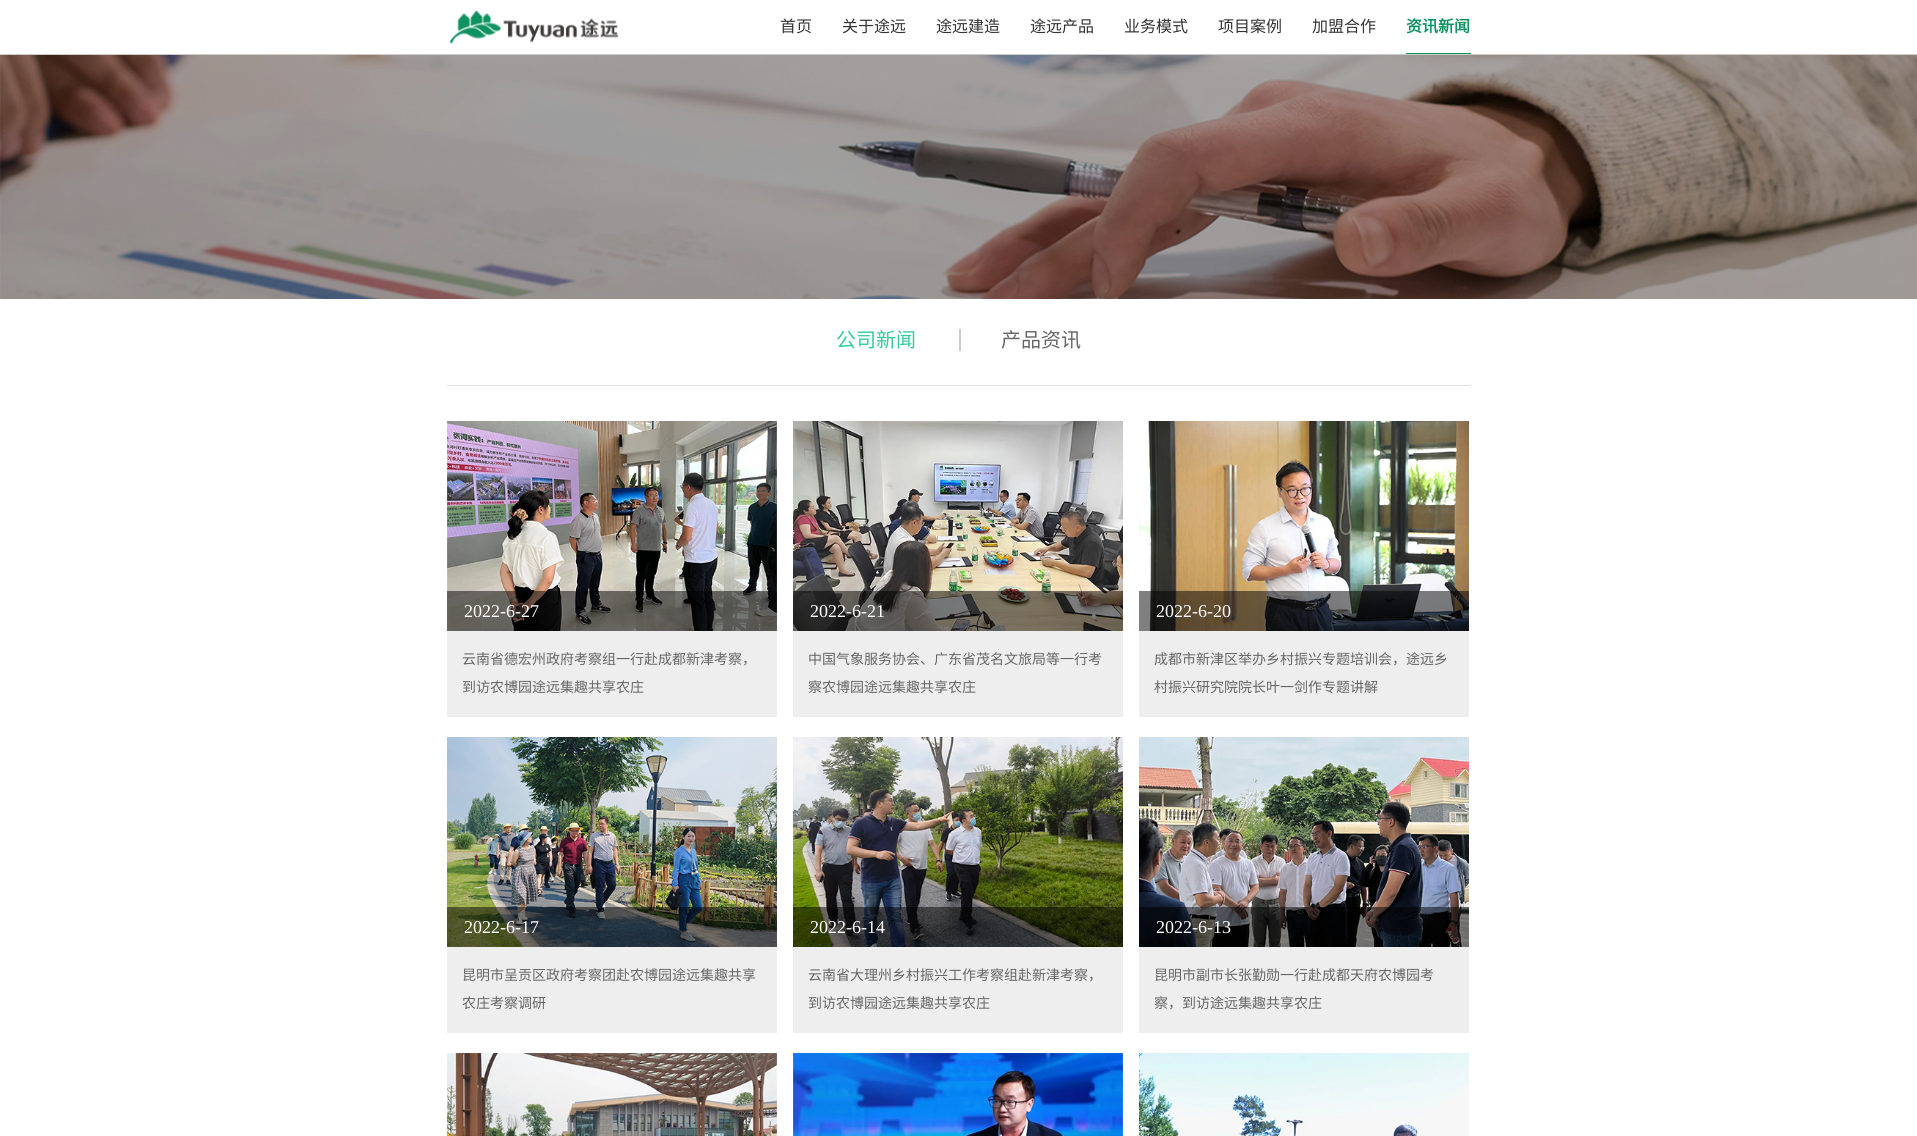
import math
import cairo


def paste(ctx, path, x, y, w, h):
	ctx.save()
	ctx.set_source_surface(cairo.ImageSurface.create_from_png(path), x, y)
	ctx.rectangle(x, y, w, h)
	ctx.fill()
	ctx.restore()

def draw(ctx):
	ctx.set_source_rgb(1, 1, 1)
	ctx.paint()
	ctx.set_source_rgb(0.8, 0.8, 0.8)
	ctx.rectangle(0, 54, 1917, 1)
	ctx.fill()
	paste(ctx, 'media/1.png', 449, 10, 170, 34)
	ctx.select_font_face('Noto Sans CJK SC')
	ctx.set_font_size(16)
	ctx.set_source_rgb(0.2, 0.2, 0.2)
	for x, y, s in [
		(780, 32, '首页'),
		(842, 32, '关于途远'),
		(936, 32, '途远建造'),
		(1030, 32, '途远产品'),
		(1124, 32, '业务模式'),
		(1218, 32, '项目案例'),
		(1312, 32, '加盟合作'),
	]:
		ctx.move_to(x, y)
		ctx.show_text(s)
	ctx.set_source_rgb(0.055, 0.573, 0.376)
	ctx.rectangle(1406, 53, 65, 1)
	ctx.fill()
	ctx.select_font_face('Noto Sans CJK SC', cairo.FONT_SLANT_NORMAL, cairo.FONT_WEIGHT_BOLD)
	ctx.move_to(1406, 32)
	ctx.show_text('资讯新闻')
	paste(ctx, 'media/2.png', 0, 55, 1917, 244)
	ctx.select_font_face('Noto Sans CJK SC')
	ctx.set_font_size(20)
	ctx.set_source_rgb(0.2, 0.8, 0.6)
	ctx.move_to(836, 347)
	ctx.show_text('公司新闻')
	ctx.set_source_rgb(0.4, 0.4, 0.4)
	ctx.move_to(1001, 347)
	ctx.show_text('产品资讯')
	ctx.set_source_rgb(0.8, 0.8, 0.8)
	ctx.rectangle(959, 329, 2, 22)
	ctx.fill()
	ctx.set_source_rgb(0.875, 0.875, 0.875)
	ctx.rectangle(447, 385, 1024, 1)
	ctx.fill()
	paste(ctx, 'media/3.png', 447, 421, 330, 210)
	ctx.set_source_rgba(0, 0, 0, 0.5)
	ctx.rectangle(447, 591, 330, 40)
	ctx.fill()
	ctx.select_font_face('Liberation Serif')
	ctx.set_font_size(18)
	ctx.set_source_rgb(1, 1, 1)
	ctx.move_to(464, 617)
	ctx.show_text('2022-6-27')
	ctx.set_source_rgb(0.933, 0.933, 0.933)
	ctx.rectangle(447, 631, 330, 86)
	ctx.fill()
	ctx.select_font_face('Noto Sans CJK SC')
	ctx.set_font_size(14)
	ctx.set_source_rgb(0.4, 0.4, 0.4)
	ctx.move_to(462, 664)
	ctx.show_text('云南省德宏州政府考察组一行赴成都新津考察，')
	ctx.move_to(462, 692)
	ctx.show_text('到访农博园途远集趣共享农庄')
	paste(ctx, 'media/4.png', 793, 421, 330, 210)
	ctx.set_source_rgba(0, 0, 0, 0.5)
	ctx.rectangle(793, 591, 330, 40)
	ctx.fill()
	ctx.select_font_face('Liberation Serif')
	ctx.set_font_size(18)
	ctx.set_source_rgb(1, 1, 1)
	ctx.move_to(810, 617)
	ctx.show_text('2022-6-21')
	ctx.set_source_rgb(0.933, 0.933, 0.933)
	ctx.rectangle(793, 631, 330, 86)
	ctx.fill()
	ctx.select_font_face('Noto Sans CJK SC')
	ctx.set_font_size(14)
	ctx.set_source_rgb(0.4, 0.4, 0.4)
	ctx.move_to(808, 664)
	ctx.show_text('中国气象服务协会、广东省茂名文旅局等一行考')
	ctx.move_to(808, 692)
	ctx.show_text('察农博园途远集趣共享农庄')
	paste(ctx, 'media/5.png', 1139, 421, 330, 210)
	ctx.set_source_rgba(0, 0, 0, 0.5)
	ctx.rectangle(1139, 591, 330, 40)
	ctx.fill()
	ctx.select_font_face('Liberation Serif')
	ctx.set_font_size(18)
	ctx.set_source_rgb(1, 1, 1)
	ctx.move_to(1156, 617)
	ctx.show_text('2022-6-20')
	ctx.set_source_rgb(0.933, 0.933, 0.933)
	ctx.rectangle(1139, 631, 330, 86)
	ctx.fill()
	ctx.select_font_face('Noto Sans CJK SC')
	ctx.set_font_size(14)
	ctx.set_source_rgb(0.4, 0.4, 0.4)
	ctx.move_to(1154, 664)
	ctx.show_text('成都市新津区举办乡村振兴专题培训会，途远乡')
	ctx.move_to(1154, 692)
	ctx.show_text('村振兴研究院院长叶一剑作专题讲解')
	paste(ctx, 'media/6.png', 447, 737, 330, 210)
	ctx.set_source_rgba(0, 0, 0, 0.5)
	ctx.rectangle(447, 907, 330, 40)
	ctx.fill()
	ctx.select_font_face('Liberation Serif')
	ctx.set_font_size(18)
	ctx.set_source_rgb(1, 1, 1)
	ctx.move_to(464, 933)
	ctx.show_text('2022-6-17')
	ctx.set_source_rgb(0.933, 0.933, 0.933)
	ctx.rectangle(447, 947, 330, 86)
	ctx.fill()
	ctx.select_font_face('Noto Sans CJK SC')
	ctx.set_font_size(14)
	ctx.set_source_rgb(0.4, 0.4, 0.4)
	ctx.move_to(462, 980)
	ctx.show_text('昆明市呈贡区政府考察团赴农博园途远集趣共享')
	ctx.move_to(462, 1008)
	ctx.show_text('农庄考察调研')
	paste(ctx, 'media/7.png', 793, 737, 330, 210)
	ctx.set_source_rgba(0, 0, 0, 0.5)
	ctx.rectangle(793, 907, 330, 40)
	ctx.fill()
	ctx.select_font_face('Liberation Serif')
	ctx.set_font_size(18)
	ctx.set_source_rgb(1, 1, 1)
	ctx.move_to(810, 933)
	ctx.show_text('2022-6-14')
	ctx.set_source_rgb(0.933, 0.933, 0.933)
	ctx.rectangle(793, 947, 330, 86)
	ctx.fill()
	ctx.select_font_face('Noto Sans CJK SC')
	ctx.set_font_size(14)
	ctx.set_source_rgb(0.4, 0.4, 0.4)
	ctx.move_to(808, 980)
	ctx.show_text('云南省大理州乡村振兴工作考察组赴新津考察，')
	ctx.move_to(808, 1008)
	ctx.show_text('到访农博园途远集趣共享农庄')
	paste(ctx, 'media/8.png', 1139, 737, 330, 210)
	ctx.set_source_rgba(0, 0, 0, 0.5)
	ctx.rectangle(1139, 907, 330, 40)
	ctx.fill()
	ctx.select_font_face('Liberation Serif')
	ctx.set_font_size(18)
	ctx.set_source_rgb(1, 1, 1)
	ctx.move_to(1156, 933)
	ctx.show_text('2022-6-13')
	ctx.set_source_rgb(0.933, 0.933, 0.933)
	ctx.rectangle(1139, 947, 330, 86)
	ctx.fill()
	ctx.select_font_face('Noto Sans CJK SC')
	ctx.set_font_size(14)
	ctx.set_source_rgb(0.4, 0.4, 0.4)
	ctx.move_to(1154, 980)
	ctx.show_text('昆明市副市长张勤勋一行赴成都天府农博园考')
	ctx.move_to(1154, 1008)
	ctx.show_text('察，到访途远集趣共享农庄')
	paste(ctx, 'media/9.png', 447, 1053, 330, 83)
	paste(ctx, 'media/10.png', 793, 1053, 330, 83)
	paste(ctx, 'media/11.png', 1139, 1053, 330, 83)


surface = cairo.ImageSurface(cairo.FORMAT_RGB24, 1917, 1136)
ctx = cairo.Context(surface)
options = cairo.FontOptions()
options.set_hint_metrics(cairo.HINT_METRICS_OFF)
options.set_hint_style(cairo.HINT_STYLE_NONE)
ctx.set_font_options(options)
ctx.set_miter_limit(4)
draw(ctx)
surface.write_to_png('image.png')
